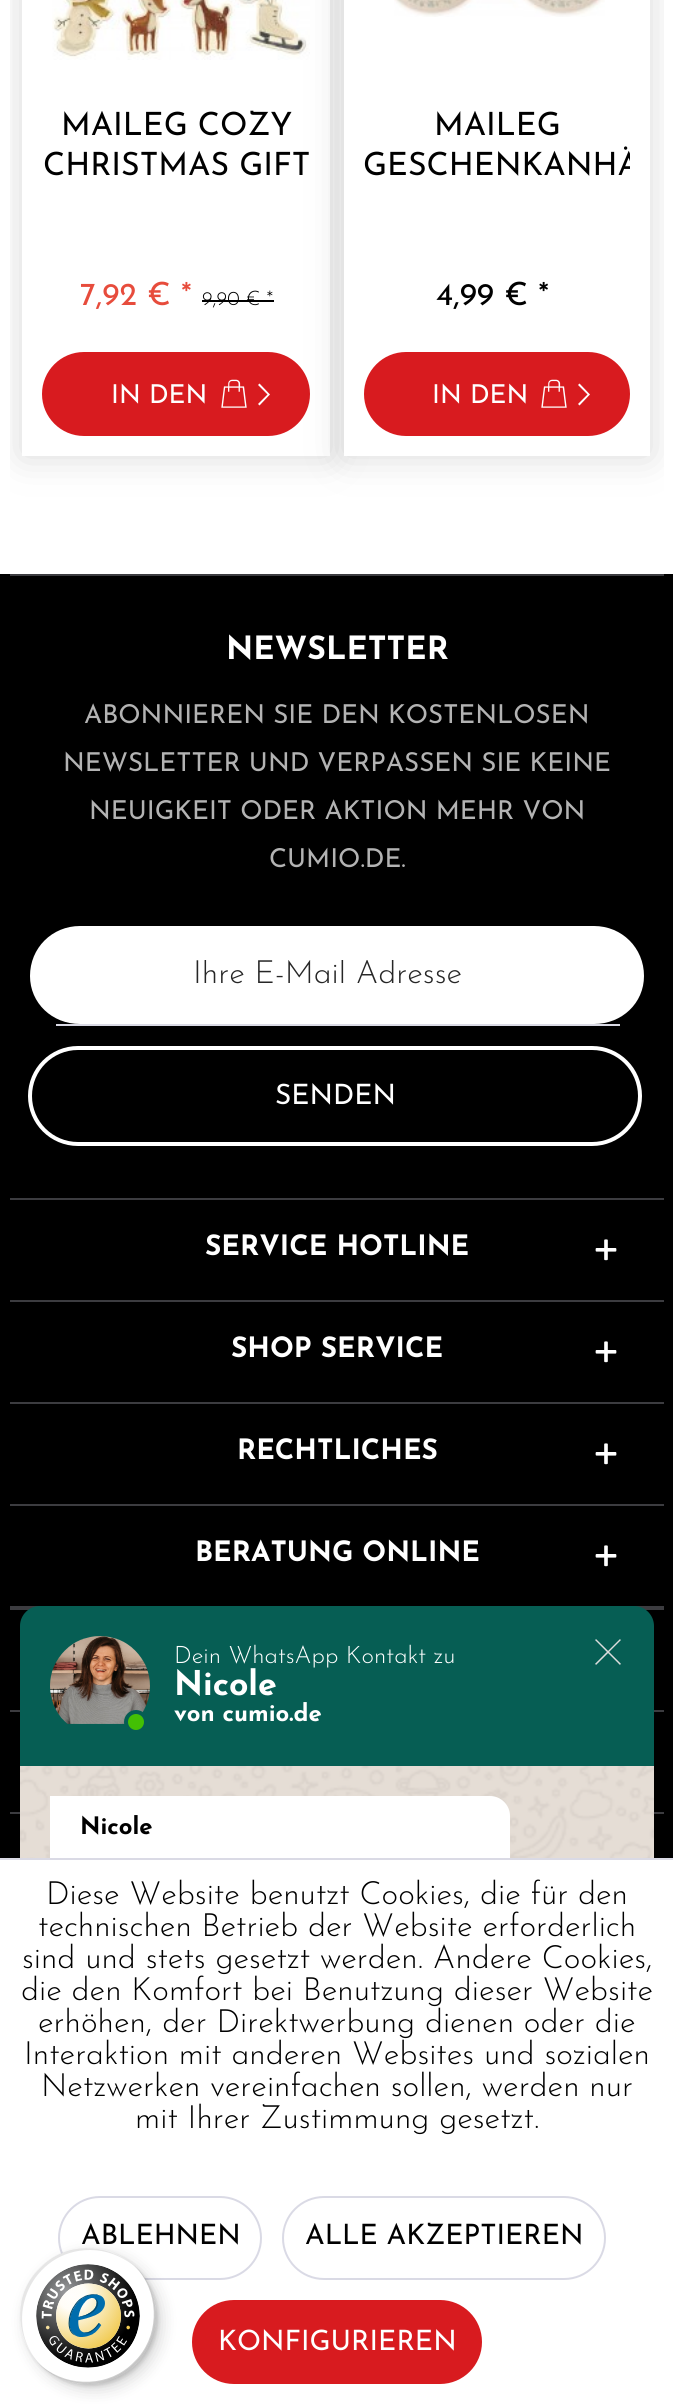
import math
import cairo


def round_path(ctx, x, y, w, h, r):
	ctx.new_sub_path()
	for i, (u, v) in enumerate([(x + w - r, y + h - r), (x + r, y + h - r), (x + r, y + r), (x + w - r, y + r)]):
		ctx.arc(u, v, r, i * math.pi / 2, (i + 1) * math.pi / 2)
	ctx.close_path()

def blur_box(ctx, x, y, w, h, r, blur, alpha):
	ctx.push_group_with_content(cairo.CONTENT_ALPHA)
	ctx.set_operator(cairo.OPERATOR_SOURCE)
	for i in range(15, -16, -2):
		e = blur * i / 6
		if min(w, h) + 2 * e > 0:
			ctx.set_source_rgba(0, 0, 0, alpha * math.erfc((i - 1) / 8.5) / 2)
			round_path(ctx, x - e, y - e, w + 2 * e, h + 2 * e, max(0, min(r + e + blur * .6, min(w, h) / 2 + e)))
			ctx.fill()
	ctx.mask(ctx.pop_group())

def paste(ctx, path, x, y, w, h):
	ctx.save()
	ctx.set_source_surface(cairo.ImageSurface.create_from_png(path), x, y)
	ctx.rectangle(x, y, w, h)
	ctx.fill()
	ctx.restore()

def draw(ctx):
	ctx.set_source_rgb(1, 1, 1)
	ctx.paint()
	ctx.save()
	ctx.rectangle(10, 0, 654, 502)
	ctx.clip()
	ctx.set_fill_rule(cairo.FILL_RULE_EVEN_ODD)
	ctx.new_path()
	ctx.move_to(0, 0)
	ctx.line_to(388, 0)
	ctx.line_to(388, 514)
	ctx.line_to(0, 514)
	ctx.close_path()
	ctx.move_to(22, -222)
	ctx.line_to(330, -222)
	ctx.line_to(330, 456)
	ctx.line_to(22, 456)
	ctx.close_path()
	ctx.clip()
	ctx.set_source_rgb(0.345, 0.345, 0.345)
	blur_box(ctx, 22, -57, 308, 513, 0, 19, 0.23)
	ctx.restore()
	ctx.set_source_rgb(0.847, 0.106, 0.122)
	round_path(ctx, 43, 353, 266, 82, 41)
	ctx.fill_preserve()
	ctx.stroke()
	ctx.save()
	ctx.rectangle(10, 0, 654, 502)
	ctx.clip()
	ctx.set_source_rgb(0.345, 0.345, 0.345)
	blur_box(ctx, 344, -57, 306, 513, 0, 19, 0.23)
	ctx.restore()
	paste(ctx, 'media/1.png', 52, 0, 258, 60)
	ctx.select_font_face('Josefin Sans')
	ctx.set_font_size(32)
	ctx.set_source_rgb(0, 0, 0)
	ctx.move_to(61, 135)
	ctx.show_text('MAILEG COZY')
	ctx.move_to(43, 175)
	ctx.show_text('CHRISTMAS GIFT')
	ctx.set_source_rgb(0.906, 0.298, 0.235)
	ctx.move_to(80, 305)
	ctx.show_text('7,92 € *')
	ctx.select_font_face('Josefin Sans Light')
	ctx.set_font_size(20)
	ctx.set_source_rgb(0, 0, 0)
	ctx.move_to(202, 305)
	ctx.show_text('9,90 € *')
	ctx.rectangle(202, 300, 72, 2)
	ctx.fill()
	ctx.select_font_face('Josefin Sans')
	ctx.set_font_size(26)
	ctx.set_source_rgb(1, 1, 1)
	ctx.move_to(111, 403)
	ctx.show_text('IN DEN')
	paste(ctx, 'media/2.png', 221, 379, 26, 29)
	ctx.new_path()
	ctx.move_to(268.5, 396)
	ctx.line_to(259.5, 405.5)
	ctx.line_to(258, 404)
	ctx.line_to(267.5, 394.5)
	ctx.line_to(258, 385)
	ctx.line_to(259.5, 383.5)
	ctx.line_to(270, 394.5)
	ctx.close_path()
	ctx.fill()
	ctx.rectangle(344, 0, 306, 456)
	ctx.fill()
	paste(ctx, 'media/3.png', 394, 0, 211, 17)
	ctx.set_font_size(32)
	ctx.set_source_rgb(0, 0, 0)
	ctx.move_to(434, 135)
	ctx.show_text('MAILEG')
	ctx.save()
	ctx.rectangle(364, 108, 266, 80)
	ctx.clip()
	ctx.move_to(363, 175)
	ctx.show_text('GESCHENKANHÄ')
	ctx.restore()
	ctx.move_to(436, 305)
	ctx.show_text('4,99 € *')
	ctx.set_source_rgb(0.847, 0.106, 0.122)
	round_path(ctx, 365, 353, 264, 82, 41)
	ctx.fill_preserve()
	ctx.stroke()
	ctx.set_font_size(26)
	ctx.set_source_rgb(1, 1, 1)
	ctx.move_to(432, 403)
	ctx.show_text('IN DEN')
	paste(ctx, 'media/2.png', 541, 379, 26, 29)
	ctx.new_path()
	ctx.move_to(588.5, 396)
	ctx.line_to(579.5, 405.5)
	ctx.line_to(578, 404)
	ctx.line_to(587.5, 394.5)
	ctx.line_to(578, 385)
	ctx.line_to(579.5, 383.5)
	ctx.line_to(590, 394.5)
	ctx.close_path()
	ctx.fill()
	ctx.set_source_rgb(0, 0, 0)
	ctx.rectangle(0, 574, 673, 1284)
	ctx.fill()
	ctx.set_source_rgb(0.235, 0.235, 0.251)
	ctx.rectangle(10, 574, 654, 2)
	ctx.fill()
	ctx.select_font_face('Josefin Sans', cairo.FONT_SLANT_NORMAL, cairo.FONT_WEIGHT_BOLD)
	ctx.set_font_size(32)
	ctx.set_source_rgb(1, 1, 1)
	ctx.move_to(226, 659)
	ctx.show_text('NEWSLETTER')
	ctx.select_font_face('Josefin Sans')
	ctx.set_font_size(26)
	ctx.set_source_rgb(0.702, 0.702, 0.702)
	for x, y, s in [
		(84, 723, 'ABONNIEREN SIE DEN KOSTENLOSEN'),
		(63, 771, 'NEWSLETTER UND VERPASSEN SIE KEINE'),
		(89, 819, 'NEUIGKEIT ODER AKTION MEHR VON'),
		(269, 867, 'CUMIO.DE.'),
	]:
		ctx.move_to(x, y)
		ctx.show_text(s)
	ctx.set_source_rgb(1, 1, 1)
	ctx.new_path()
	ctx.move_to(80, 926)
	ctx.line_to(594, 926)
	ctx.curve_to(622, 926, 644, 948, 644, 976)
	ctx.curve_to(644, 1003, 622, 1024, 594, 1024)
	ctx.line_to(80, 1024)
	ctx.curve_to(52, 1024, 30, 1003, 30, 976)
	ctx.curve_to(30, 948, 52, 926, 80, 926)
	ctx.close_path()
	ctx.fill()
	ctx.set_source_rgb(0.855, 0.855, 0.898)
	ctx.rectangle(56, 1024, 564, 2)
	ctx.fill()
	ctx.save()
	ctx.rectangle(30, 960, 594, 32)
	ctx.clip()
	ctx.select_font_face('Josefin Sans Light')
	ctx.set_font_size(32)
	ctx.set_source_rgb(0.149, 0.149, 0.149)
	ctx.move_to(193, 983)
	ctx.show_text('Ihre E-Mail Adresse')
	ctx.restore()
	round_path(ctx, 30, 1048, 610, 96, 48)
	ctx.set_source_rgb(1, 1, 1)
	ctx.set_line_width(4)
	ctx.stroke()
	ctx.set_font_size(28)
	ctx.move_to(275, 1104)
	ctx.show_text('SENDEN')
	ctx.set_source_rgb(0.235, 0.235, 0.251)
	ctx.rectangle(10, 1198, 654, 2)
	ctx.fill()
	ctx.select_font_face('Josefin Sans', cairo.FONT_SLANT_NORMAL, cairo.FONT_WEIGHT_BOLD)
	ctx.set_source_rgb(1, 1, 1)
	ctx.move_to(205, 1255)
	ctx.show_text('SERVICE HOTLINE')
	paste(ctx, 'media/4.png', 595, 1239, 22, 22)
	ctx.set_source_rgb(0.235, 0.235, 0.251)
	ctx.rectangle(10, 1300, 654, 2)
	ctx.fill()
	ctx.set_source_rgb(1, 1, 1)
	ctx.move_to(231, 1357)
	ctx.show_text('SHOP SERVICE')
	paste(ctx, 'media/4.png', 595, 1341, 22, 22)
	ctx.set_source_rgb(0.235, 0.235, 0.251)
	ctx.rectangle(10, 1402, 654, 2)
	ctx.fill()
	ctx.set_source_rgb(1, 1, 1)
	ctx.move_to(237, 1459)
	ctx.show_text('RECHTLICHES')
	paste(ctx, 'media/4.png', 595, 1443, 22, 22)
	ctx.set_source_rgb(0.235, 0.235, 0.251)
	ctx.rectangle(10, 1504, 654, 2)
	ctx.fill()
	ctx.rectangle(10, 1606, 654, 4)
	ctx.fill()
	ctx.set_source_rgb(1, 1, 1)
	ctx.move_to(195, 1561)
	ctx.show_text('BERATUNG ONLINE')
	paste(ctx, 'media/4.png', 595, 1545, 22, 22)
	ctx.set_source_rgb(0.235, 0.235, 0.251)
	ctx.rectangle(10, 1710, 654, 2)
	ctx.fill()
	ctx.rectangle(10, 1812, 654, 2)
	ctx.fill()
	ctx.set_source_rgb(0.027, 0.369, 0.329)
	ctx.new_path()
	ctx.move_to(40, 1606)
	ctx.line_to(634, 1606)
	ctx.curve_to(645, 1606, 654, 1615, 654, 1626)
	ctx.line_to(654, 1766)
	ctx.line_to(20, 1766)
	ctx.line_to(20, 1626)
	ctx.curve_to(20, 1615, 29, 1606, 40, 1606)
	ctx.close_path()
	ctx.fill()
	paste(ctx, 'media/5.png', 50, 1636, 100, 88)
	ctx.set_source_rgb(0.263, 0.753, 0.016)
	ctx.arc(136, 1722, 10, 0, 2 * math.pi)
	ctx.fill_preserve()
	ctx.set_source_rgb(0.027, 0.369, 0.329)
	ctx.stroke()
	ctx.select_font_face('Josefin Sans Light')
	ctx.set_font_size(24)
	ctx.set_source_rgb(1, 1, 1)
	ctx.move_to(174, 1663)
	ctx.show_text('Dein WhatsApp Kontakt zu')
	ctx.select_font_face('Josefin Sans', cairo.FONT_SLANT_NORMAL, cairo.FONT_WEIGHT_BOLD)
	ctx.set_font_size(34)
	ctx.move_to(174, 1695)
	ctx.show_text('Nicole')
	ctx.set_font_size(24)
	ctx.move_to(174, 1721)
	ctx.show_text('von cumio.de')
	paste(ctx, 'media/6.png', 595, 1639, 26, 26)
	paste(ctx, 'media/7.png', 20, 1766, 634, 92)
	ctx.new_path()
	ctx.move_to(50, 1796)
	ctx.line_to(490, 1796)
	ctx.curve_to(501, 1796, 510, 1805, 510, 1816)
	ctx.line_to(510, 2052)
	ctx.curve_to(510, 2063, 501, 2072, 490, 2072)
	ctx.line_to(70, 2072)
	ctx.curve_to(59, 2072, 50, 2063, 50, 2052)
	ctx.close_path()
	ctx.fill()
	ctx.set_source_rgb(0, 0, 0)
	ctx.move_to(80, 1834)
	ctx.show_text('Nicole')
	ctx.set_source_rgb(0.855, 0.855, 0.898)
	ctx.rectangle(0, 1858, 673, 2)
	ctx.fill()
	ctx.select_font_face('Josefin Sans Light')
	ctx.set_font_size(32)
	ctx.set_source_rgb(0, 0, 0)
	for x, y, s in [
		(46, 1904, 'Diese Website benutzt Cookies, die für den'),
		(38, 1936, 'technischen Betrieb der Website erforderlich'),
		(22, 1968, 'sind und stets gesetzt werden. Andere Cookies,'),
		(21, 2000, 'die den Komfort bei Benutzung dieser Website'),
		(38, 2032, 'erhöhen, der Direktwerbung dienen oder die'),
		(24, 2064, 'Interaktion mit anderen Websites und sozialen'),
		(41, 2096, 'Netzwerken vereinfachen sollen, werden nur'),
		(135, 2128, 'mit Ihrer Zustimmung gesetzt.'),
	]:
		ctx.move_to(x, y)
		ctx.show_text(s)
	round_path(ctx, 59, 2197, 202, 82, 41)
	ctx.set_source_rgb(0.855, 0.855, 0.898)
	ctx.set_line_width(2)
	ctx.stroke()
	ctx.select_font_face('Josefin Sans')
	ctx.set_font_size(28)
	ctx.set_source_rgb(0, 0, 0)
	ctx.move_to(81, 2244)
	ctx.show_text('ABLEHNEN')
	round_path(ctx, 283, 2197, 322, 82, 41)
	ctx.set_source_rgb(0.855, 0.855, 0.898)
	ctx.stroke()
	ctx.set_source_rgb(0, 0, 0)
	ctx.move_to(305, 2244)
	ctx.show_text('ALLE AKZEPTIEREN')
	ctx.set_source_rgb(0.847, 0.106, 0.122)
	round_path(ctx, 193, 2301, 288, 82, 41)
	ctx.fill_preserve()
	ctx.stroke()
	ctx.set_source_rgb(1, 1, 1)
	ctx.move_to(218, 2350)
	ctx.show_text('KONFIGURIEREN')
	ctx.set_source_rgb(0, 0, 0)
	blur_box(ctx, 26, 2254, 136, 136, 68, 8, 0.15)
	blur_box(ctx, 22, 2250, 136, 136, 68, 2, 0.15)
	ctx.set_source_rgb(1, 1, 1)
	ctx.arc(88, 2316, 68, 0, 2 * math.pi)
	ctx.fill()
	ctx.set_source_rgba(0, 0, 0, 0.1)
	ctx.new_path()
	ctx.move_to(90, 2250)
	ctx.curve_to(106, 2250, 121, 2256, 133, 2265)
	ctx.curve_to(106, 2242, 65, 2242, 40, 2268)
	ctx.curve_to(14, 2293, 14, 2334, 37, 2361)
	ctx.curve_to(2, 2318, 32, 2250, 90, 2250)
	ctx.close_path()
	ctx.fill()
	ctx.set_source_rgba(0, 0, 0, 0.2)
	ctx.new_path()
	ctx.move_to(43, 2367)
	ctx.curve_to(70, 2390, 111, 2390, 136, 2364)
	ctx.curve_to(162, 2339, 162, 2298, 139, 2271)
	ctx.curve_to(160, 2297, 159, 2338, 134, 2362)
	ctx.curve_to(110, 2387, 69, 2388, 43, 2367)
	ctx.close_path()
	ctx.fill()
	ctx.set_source_rgba(0.196, 0.196, 0.196, 0.2)
	ctx.new_path()
	ctx.move_to(38, 2363)
	ctx.curve_to(64, 2390, 109, 2391, 136, 2364)
	ctx.curve_to(163, 2337, 162, 2292, 135, 2266)
	ctx.curve_to(161, 2293, 162, 2336, 135, 2363)
	ctx.curve_to(108, 2390, 65, 2389, 38, 2363)
	ctx.close_path()
	ctx.fill()
	ctx.set_source_rgba(1, 1, 1, 0.3)
	ctx.new_path()
	ctx.move_to(47, 2370)
	ctx.curve_to(74, 2390, 112, 2388, 136, 2364)
	ctx.curve_to(160, 2340, 162, 2302, 142, 2275)
	ctx.curve_to(161, 2302, 159, 2340, 135, 2363)
	ctx.curve_to(112, 2387, 74, 2389, 47, 2370)
	ctx.close_path()
	ctx.fill()
	paste(ctx, 'media/8.png', 36, 2264, 104, 104)


surface = cairo.ImageSurface(cairo.FORMAT_RGB24, 673, 2404)
ctx = cairo.Context(surface)
options = cairo.FontOptions()
options.set_hint_metrics(cairo.HINT_METRICS_OFF)
options.set_hint_style(cairo.HINT_STYLE_NONE)
ctx.set_font_options(options)
ctx.set_miter_limit(4)
draw(ctx)
surface.write_to_png('image.png')
